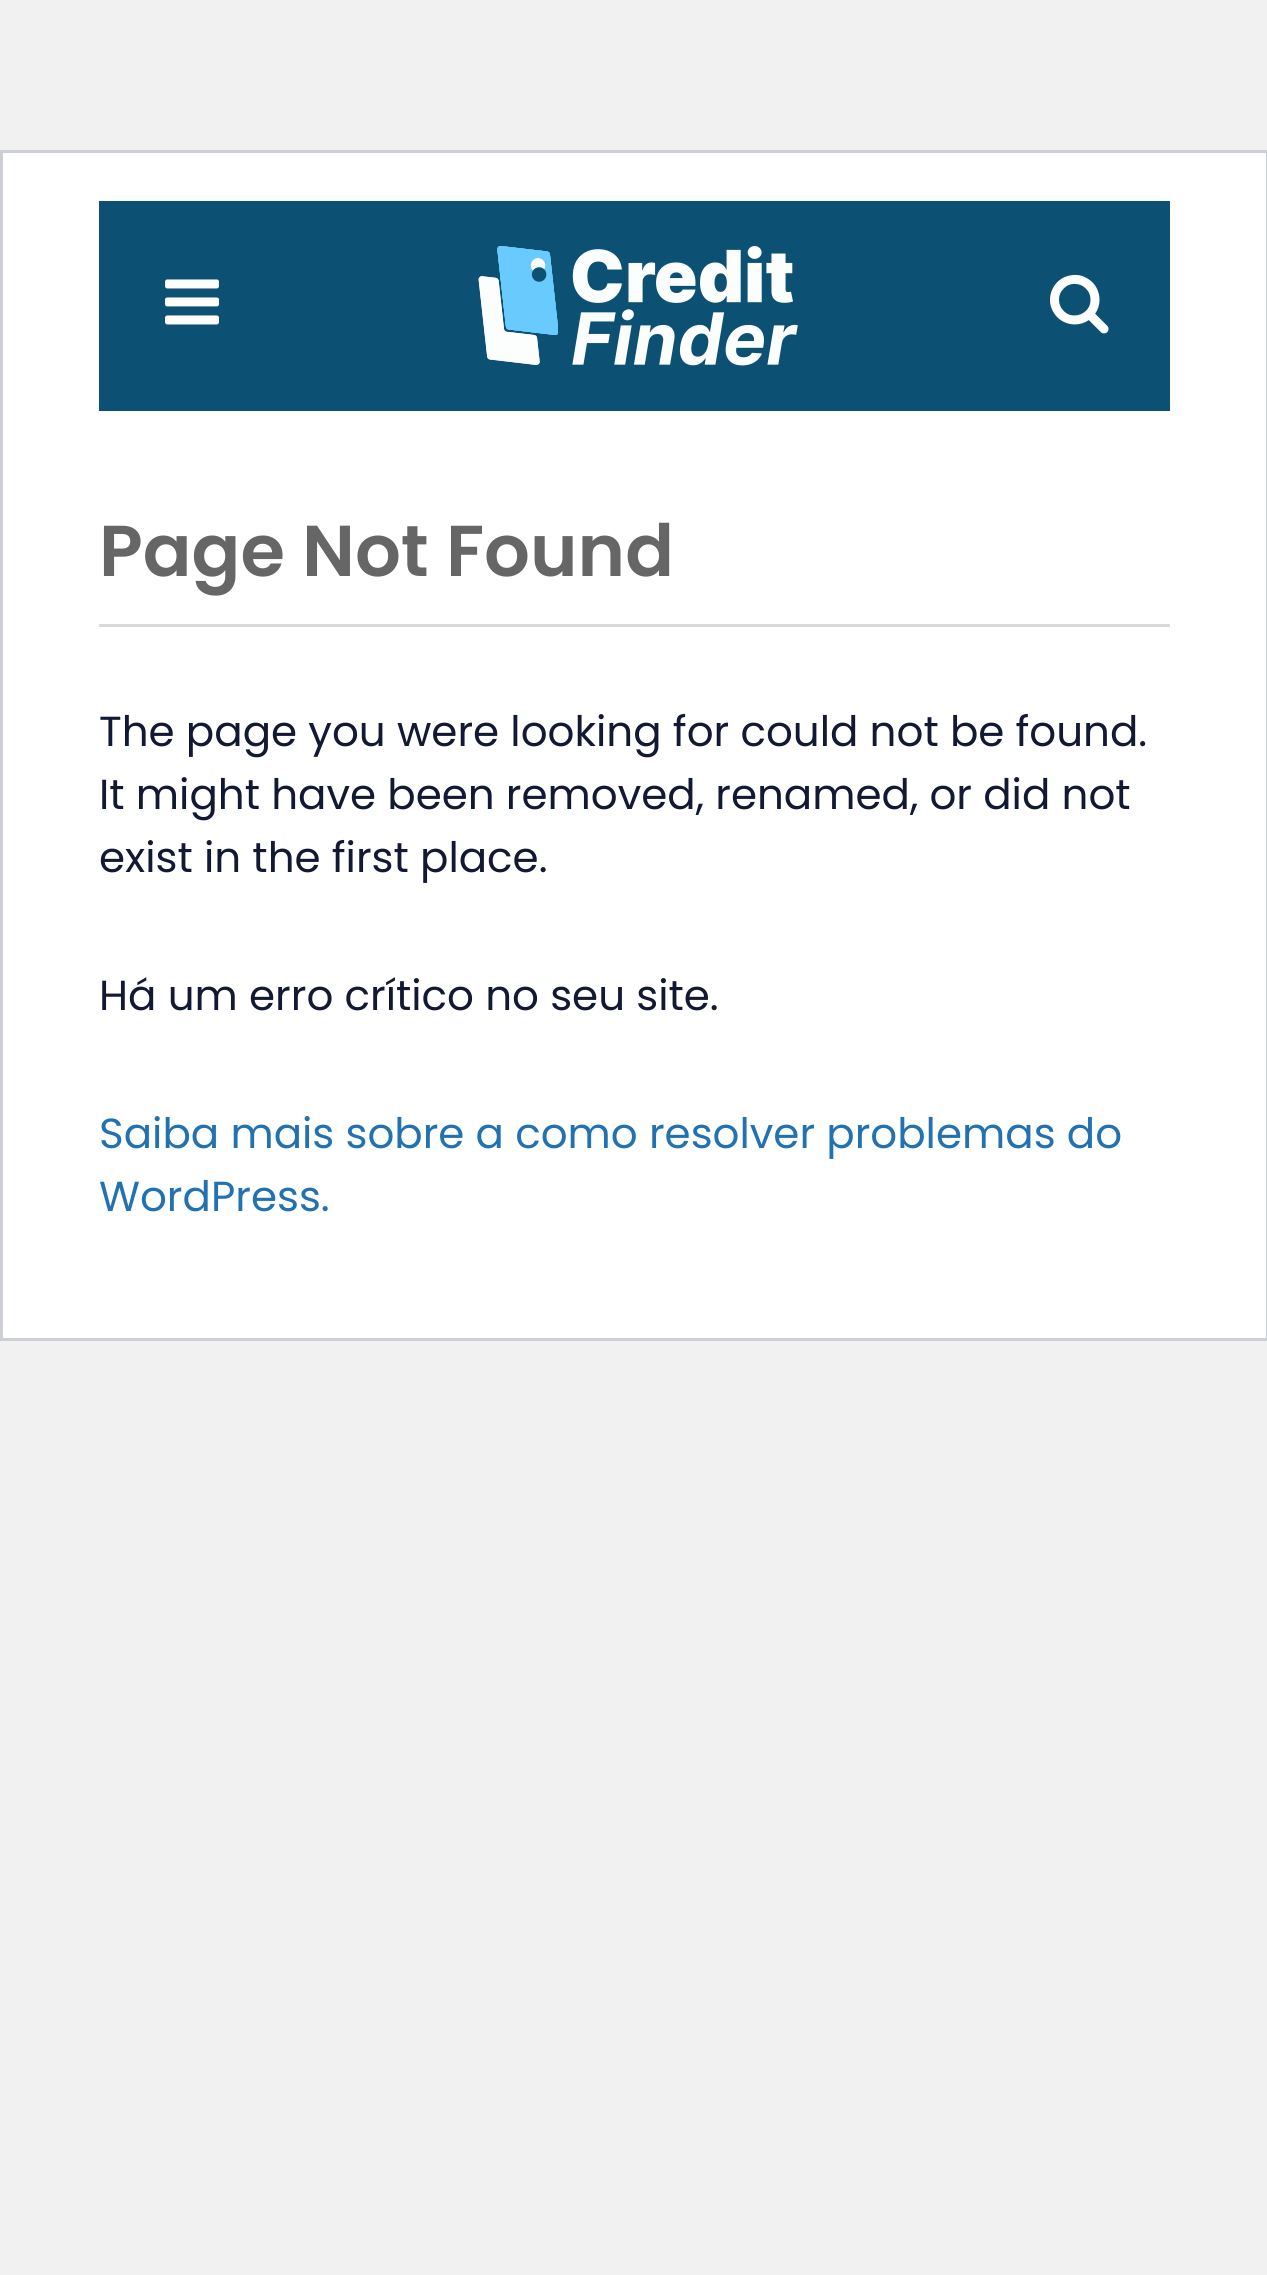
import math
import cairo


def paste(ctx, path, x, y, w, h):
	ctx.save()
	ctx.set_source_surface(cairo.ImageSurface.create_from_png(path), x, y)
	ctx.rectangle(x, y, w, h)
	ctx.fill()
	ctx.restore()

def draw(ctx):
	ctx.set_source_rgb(0.945, 0.945, 0.945)
	ctx.paint()
	ctx.set_source_rgb(1, 1, 1)
	ctx.rectangle(1.5, 151.5, 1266, 1188)
	ctx.fill_preserve()
	ctx.set_source_rgb(0.8, 0.816, 0.831)
	ctx.set_line_width(3)
	ctx.stroke()
	ctx.set_source_rgb(0.047, 0.314, 0.451)
	ctx.rectangle(99, 201, 1071, 210)
	ctx.fill()
	paste(ctx, 'media/1.png', 165, 279, 54, 46)
	paste(ctx, 'media/2.png', 478, 246, 320, 120)
	paste(ctx, 'media/3.png', 1050, 274, 59, 60)
	ctx.set_source_rgb(0.855, 0.855, 0.855)
	ctx.rectangle(99, 624, 1071, 3)
	ctx.fill()
	ctx.select_font_face('Poppins SemiBold')
	ctx.set_font_size(72)
	ctx.set_source_rgb(0.4, 0.4, 0.4)
	ctx.move_to(99, 576)
	ctx.show_text('Page Not Found')
	ctx.select_font_face('Poppins')
	ctx.set_font_size(42)
	ctx.set_source_rgb(0.078, 0.098, 0.2)
	for x, y, s in [
		(99, 746, 'The page you were looking for could not be found.'),
		(99, 809, 'It might have been removed, renamed, or did not'),
		(99, 872, 'exist in the first place.'),
		(99, 1010, 'Há um erro crítico no seu site.'),
	]:
		ctx.move_to(x, y)
		ctx.show_text(s)
	ctx.set_source_rgb(0.133, 0.443, 0.694)
	ctx.move_to(99, 1148)
	ctx.show_text('Saiba mais sobre a como resolver problemas do')
	ctx.move_to(99, 1211)
	ctx.show_text('WordPress.')


surface = cairo.ImageSurface(cairo.FORMAT_RGB24, 1267, 2275)
ctx = cairo.Context(surface)
options = cairo.FontOptions()
options.set_hint_metrics(cairo.HINT_METRICS_OFF)
options.set_hint_style(cairo.HINT_STYLE_NONE)
ctx.set_font_options(options)
ctx.set_miter_limit(4)
draw(ctx)
surface.write_to_png('image.png')
